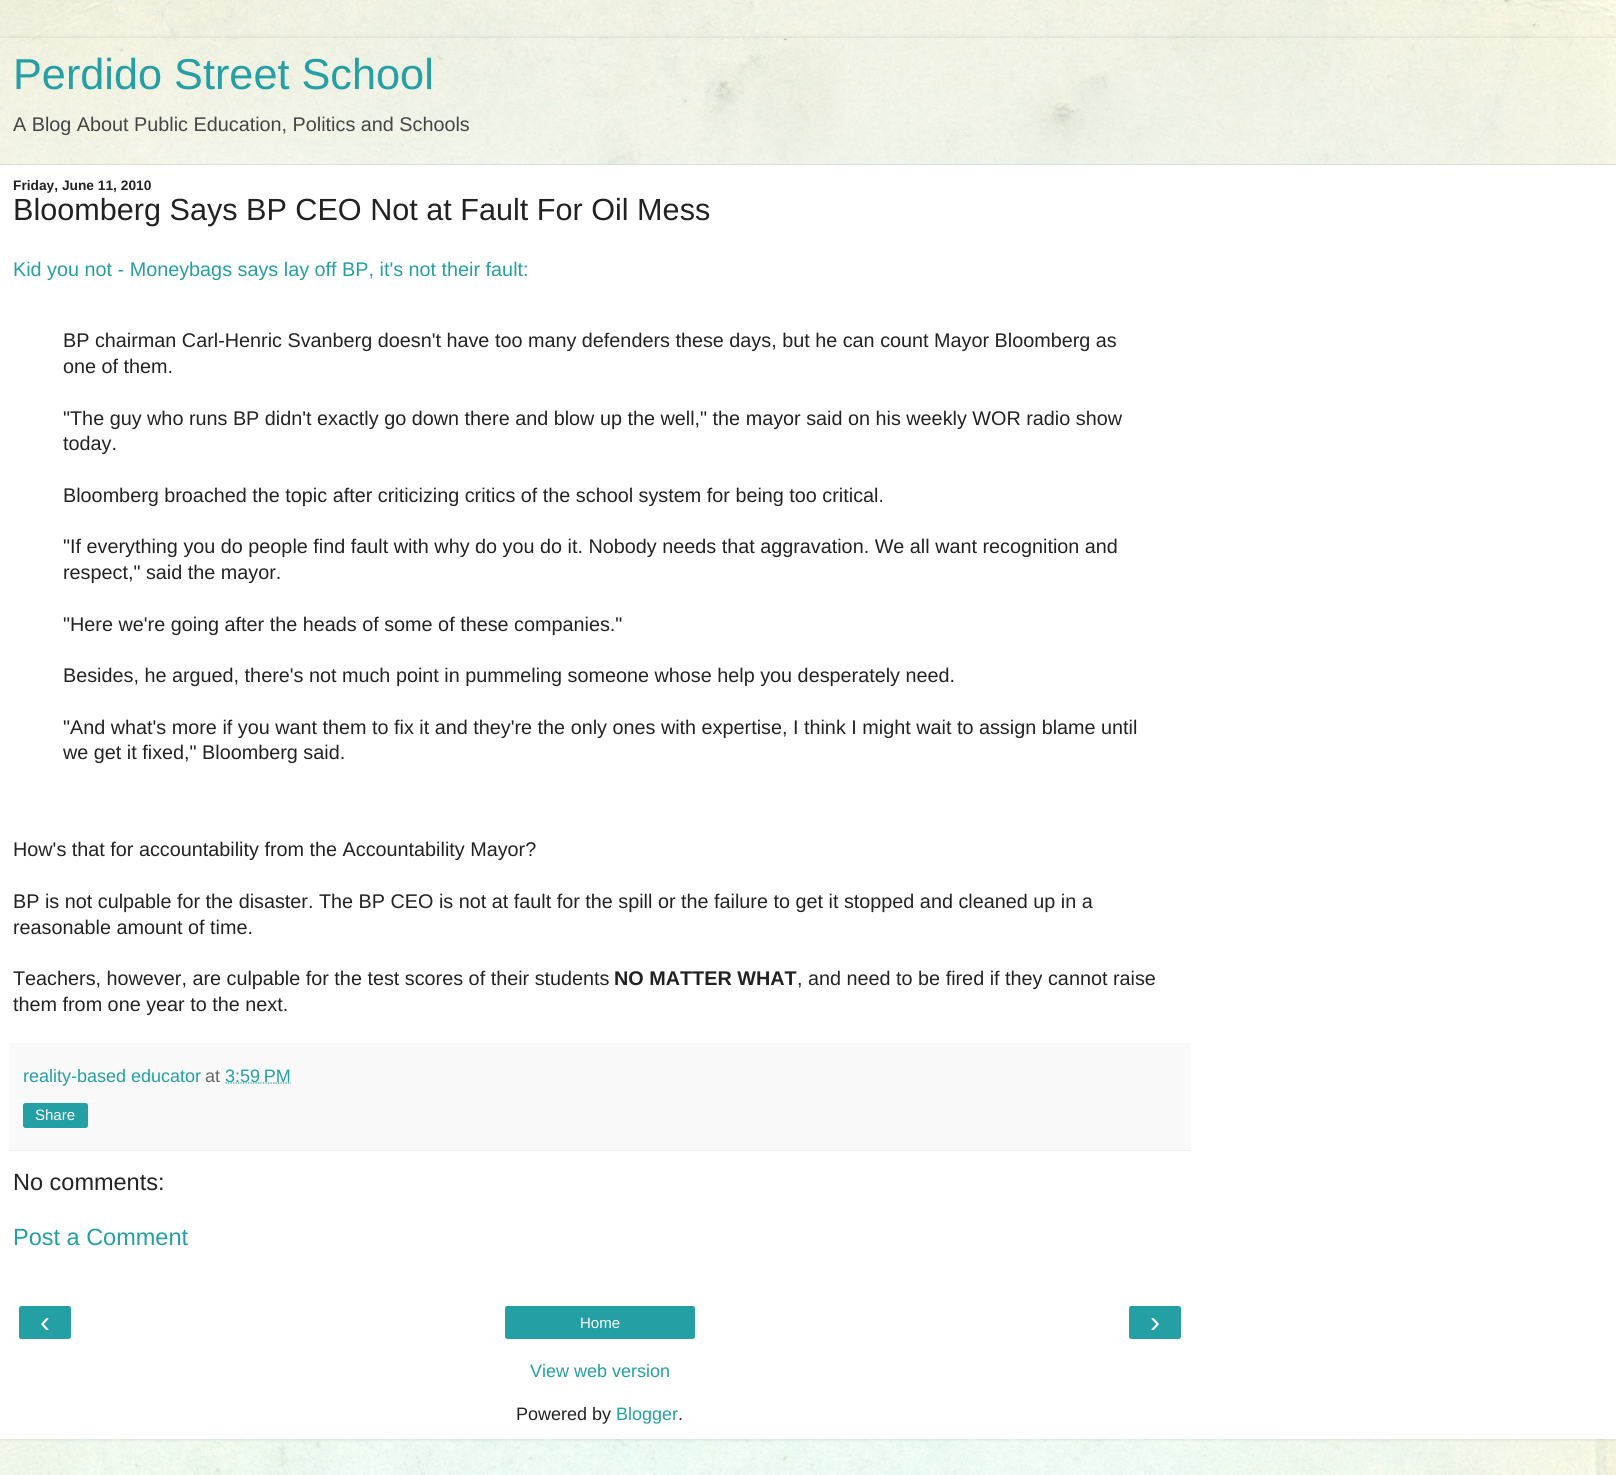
import math
import cairo


def round_path(ctx, x, y, w, h, r):
	ctx.new_sub_path()
	for i, (u, v) in enumerate([(x + w - r, y + h - r), (x + r, y + h - r), (x + r, y + r), (x + w - r, y + r)]):
		ctx.arc(u, v, r, i * math.pi / 2, (i + 1) * math.pi / 2)
	ctx.close_path()

def blur_box(ctx, x, y, w, h, r, blur, alpha):
	ctx.push_group_with_content(cairo.CONTENT_ALPHA)
	ctx.set_operator(cairo.OPERATOR_SOURCE)
	for i in range(15, -16, -2):
		e = blur * i / 6
		if min(w, h) + 2 * e > 0:
			ctx.set_source_rgba(0, 0, 0, alpha * math.erfc((i - 1) / 8.5) / 2)
			round_path(ctx, x - e, y - e, w + 2 * e, h + 2 * e, max(0, min(r + e + blur * .6, min(w, h) / 2 + e)))
			ctx.fill()
	ctx.mask(ctx.pop_group())

def paste(ctx, path, x, y, w, h):
	ctx.save()
	ctx.set_source_surface(cairo.ImageSurface.create_from_png(path), x, y)
	ctx.rectangle(x, y, w, h)
	ctx.fill()
	ctx.restore()

def draw(ctx):
	ctx.set_source_rgb(1, 1, 1)
	ctx.paint()
	paste(ctx, 'media/1.png', 0, 0, 1616, 1475)
	paste(ctx, 'media/2.png', 0, 0, 1616, 164)
	ctx.save()
	ctx.set_fill_rule(cairo.FILL_RULE_EVEN_ODD)
	ctx.new_path()
	ctx.move_to(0, 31)
	ctx.line_to(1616, 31)
	ctx.line_to(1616, 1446)
	ctx.line_to(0, 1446)
	ctx.close_path()
	ctx.move_to(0, 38)
	ctx.line_to(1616, 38)
	ctx.line_to(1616, 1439)
	ctx.line_to(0, 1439)
	ctx.close_path()
	ctx.clip()
	ctx.set_source_rgb(0, 0, 0)
	blur_box(ctx, 0, 38, 1616, 1401, 0, 2, 0.15)
	ctx.restore()
	ctx.select_font_face('Liberation Sans')
	ctx.set_font_size(43.25)
	ctx.set_source_rgb(0.141, 0.624, 0.639)
	ctx.move_to(13, 89)
	ctx.show_text('Perdido Street School')
	ctx.set_font_size(19.8)
	ctx.set_source_rgb(0.267, 0.267, 0.267)
	ctx.move_to(13, 131)
	ctx.show_text('A Blog About Public Education, Politics and Schools')
	ctx.set_source_rgb(1, 1, 1)
	ctx.rectangle(0, 165, 1616, 1274)
	ctx.fill()
	ctx.set_source_rgb(0.867, 0.867, 0.867)
	ctx.rectangle(0, 164, 1616, 1)
	ctx.fill()
	ctx.select_font_face('Liberation Sans', cairo.FONT_SLANT_NORMAL, cairo.FONT_WEIGHT_BOLD)
	ctx.set_font_size(13.75)
	ctx.set_source_rgb(0.133, 0.133, 0.133)
	ctx.move_to(13, 190)
	ctx.show_text('Friday, June 11, 2010')
	ctx.select_font_face('Liberation Sans')
	ctx.set_font_size(30.6)
	ctx.move_to(13, 220)
	ctx.show_text('Bloomberg Says BP CEO Not at Fault For Oil Mess')
	ctx.set_font_size(19.8)
	ctx.set_source_rgb(0.141, 0.624, 0.639)
	ctx.move_to(13, 276)
	ctx.show_text('Kid you not - Moneybags says lay off BP, it\'s not their fault:')
	ctx.set_source_rgb(0.133, 0.133, 0.133)
	for x, y, s in [
		(63, 347, 'BP chairman Carl-Henric Svanberg doesn\'t have too many defenders these days, but he can count Mayor Bloomberg as'),
		(63, 373, 'one of them.'),
		(63, 425, '"The guy who runs BP didn\'t exactly go down there and blow up the well," the mayor said on his weekly WOR radio show'),
		(63, 450, 'today.'),
		(63, 502, 'Bloomberg broached the topic after criticizing critics of the school system for being too critical.'),
		(63, 553, '"If everything you do people find fault with why do you do it. Nobody needs that aggravation. We all want recognition and'),
		(63, 579, 'respect," said the mayor.'),
		(63, 631, '"Here we\'re going after the heads of some of these companies."'),
		(63, 682, 'Besides, he argued, there\'s not much point in pummeling someone whose help you desperately need.'),
		(63, 734, '"And what\'s more if you want them to fix it and they\'re the only ones with expertise, I think I might wait to assign blame until'),
		(63, 759, 'we get it fixed," Bloomberg said.'),
		(13, 856, 'How\'s that for accountability from the Accountability Mayor?'),
		(13, 908, 'BP is not culpable for the disaster. The BP CEO is not at fault for the spill or the failure to get it stopped and cleaned up in a'),
		(13, 934, 'reasonable amount of time.'),
		(13, 985, 'Teachers, however, are culpable for the test scores of their students'),
	]:
		ctx.move_to(x, y)
		ctx.show_text(s)
	ctx.select_font_face('Liberation Sans', cairo.FONT_SLANT_NORMAL, cairo.FONT_WEIGHT_BOLD)
	ctx.move_to(614, 985)
	ctx.show_text('NO MATTER WHAT')
	ctx.select_font_face('Liberation Sans')
	ctx.move_to(797, 985)
	ctx.show_text(', and need to be fired if they cannot raise')
	ctx.move_to(13, 1011)
	ctx.show_text('them from one year to the next.')
	ctx.set_source_rgb(0.976, 0.976, 0.976)
	ctx.rectangle(10, 1043, 1180, 107)
	ctx.fill()
	ctx.set_source_rgb(0.933, 0.933, 0.933)
	ctx.rectangle(10, 1150, 1180, 1)
	ctx.fill()
	ctx.set_font_size(18)
	ctx.set_source_rgb(0.141, 0.624, 0.639)
	ctx.move_to(23, 1082)
	ctx.show_text('reality-based educator')
	ctx.set_source_rgb(0.4, 0.4, 0.4)
	ctx.move_to(205, 1082)
	ctx.show_text('at')
	ctx.new_path()
	ctx.move_to(225.5, 1083)
	ctx.line_to(291, 1083)
	ctx.set_source_rgb(0.141, 0.624, 0.639)
	ctx.set_line_width(1.2)
	ctx.set_dash([1.25, 1.25])
	ctx.stroke()
	ctx.move_to(225, 1082)
	ctx.show_text('3:59 PM')
	round_path(ctx, 23, 1103, 65, 25, 2.5)
	ctx.fill()
	ctx.set_font_size(15)
	ctx.set_source_rgb(1, 1, 1)
	ctx.move_to(35, 1120)
	ctx.show_text('Share')
	ctx.set_font_size(23.5)
	ctx.set_source_rgb(0.133, 0.133, 0.133)
	ctx.move_to(13, 1190)
	ctx.show_text('No comments:')
	ctx.set_source_rgb(0.141, 0.624, 0.639)
	ctx.move_to(13, 1245)
	ctx.show_text('Post a Comment')
	round_path(ctx, 19, 1306, 52, 33, 2.5)
	ctx.fill()
	ctx.set_font_size(30)
	ctx.set_source_rgb(1, 1, 1)
	ctx.move_to(40, 1332)
	ctx.show_text('‹')
	ctx.set_source_rgb(0.141, 0.624, 0.639)
	round_path(ctx, 505, 1306, 190, 33, 2.5)
	ctx.fill()
	ctx.set_font_size(15)
	ctx.set_source_rgb(1, 1, 1)
	ctx.move_to(580, 1328)
	ctx.show_text('Home')
	ctx.set_source_rgb(0.141, 0.624, 0.639)
	round_path(ctx, 1129, 1306, 52, 33, 2.5)
	ctx.fill()
	ctx.set_font_size(30)
	ctx.set_source_rgb(1, 1, 1)
	ctx.move_to(1150, 1332)
	ctx.show_text('›')
	ctx.set_font_size(18)
	ctx.set_source_rgb(0.141, 0.624, 0.639)
	ctx.move_to(530, 1377)
	ctx.show_text('View web version')
	ctx.set_source_rgb(0.133, 0.133, 0.133)
	ctx.move_to(516, 1420)
	ctx.show_text('Powered by')
	ctx.set_source_rgb(0.141, 0.624, 0.639)
	ctx.move_to(616, 1420)
	ctx.show_text('Blogger')
	ctx.set_source_rgb(0.133, 0.133, 0.133)
	ctx.move_to(678, 1420)
	ctx.show_text('.')


surface = cairo.ImageSurface(cairo.FORMAT_RGB24, 1616, 1475)
ctx = cairo.Context(surface)
options = cairo.FontOptions()
options.set_hint_metrics(cairo.HINT_METRICS_OFF)
options.set_hint_style(cairo.HINT_STYLE_NONE)
ctx.set_font_options(options)
ctx.set_miter_limit(4)
draw(ctx)
surface.write_to_png('image.png')
